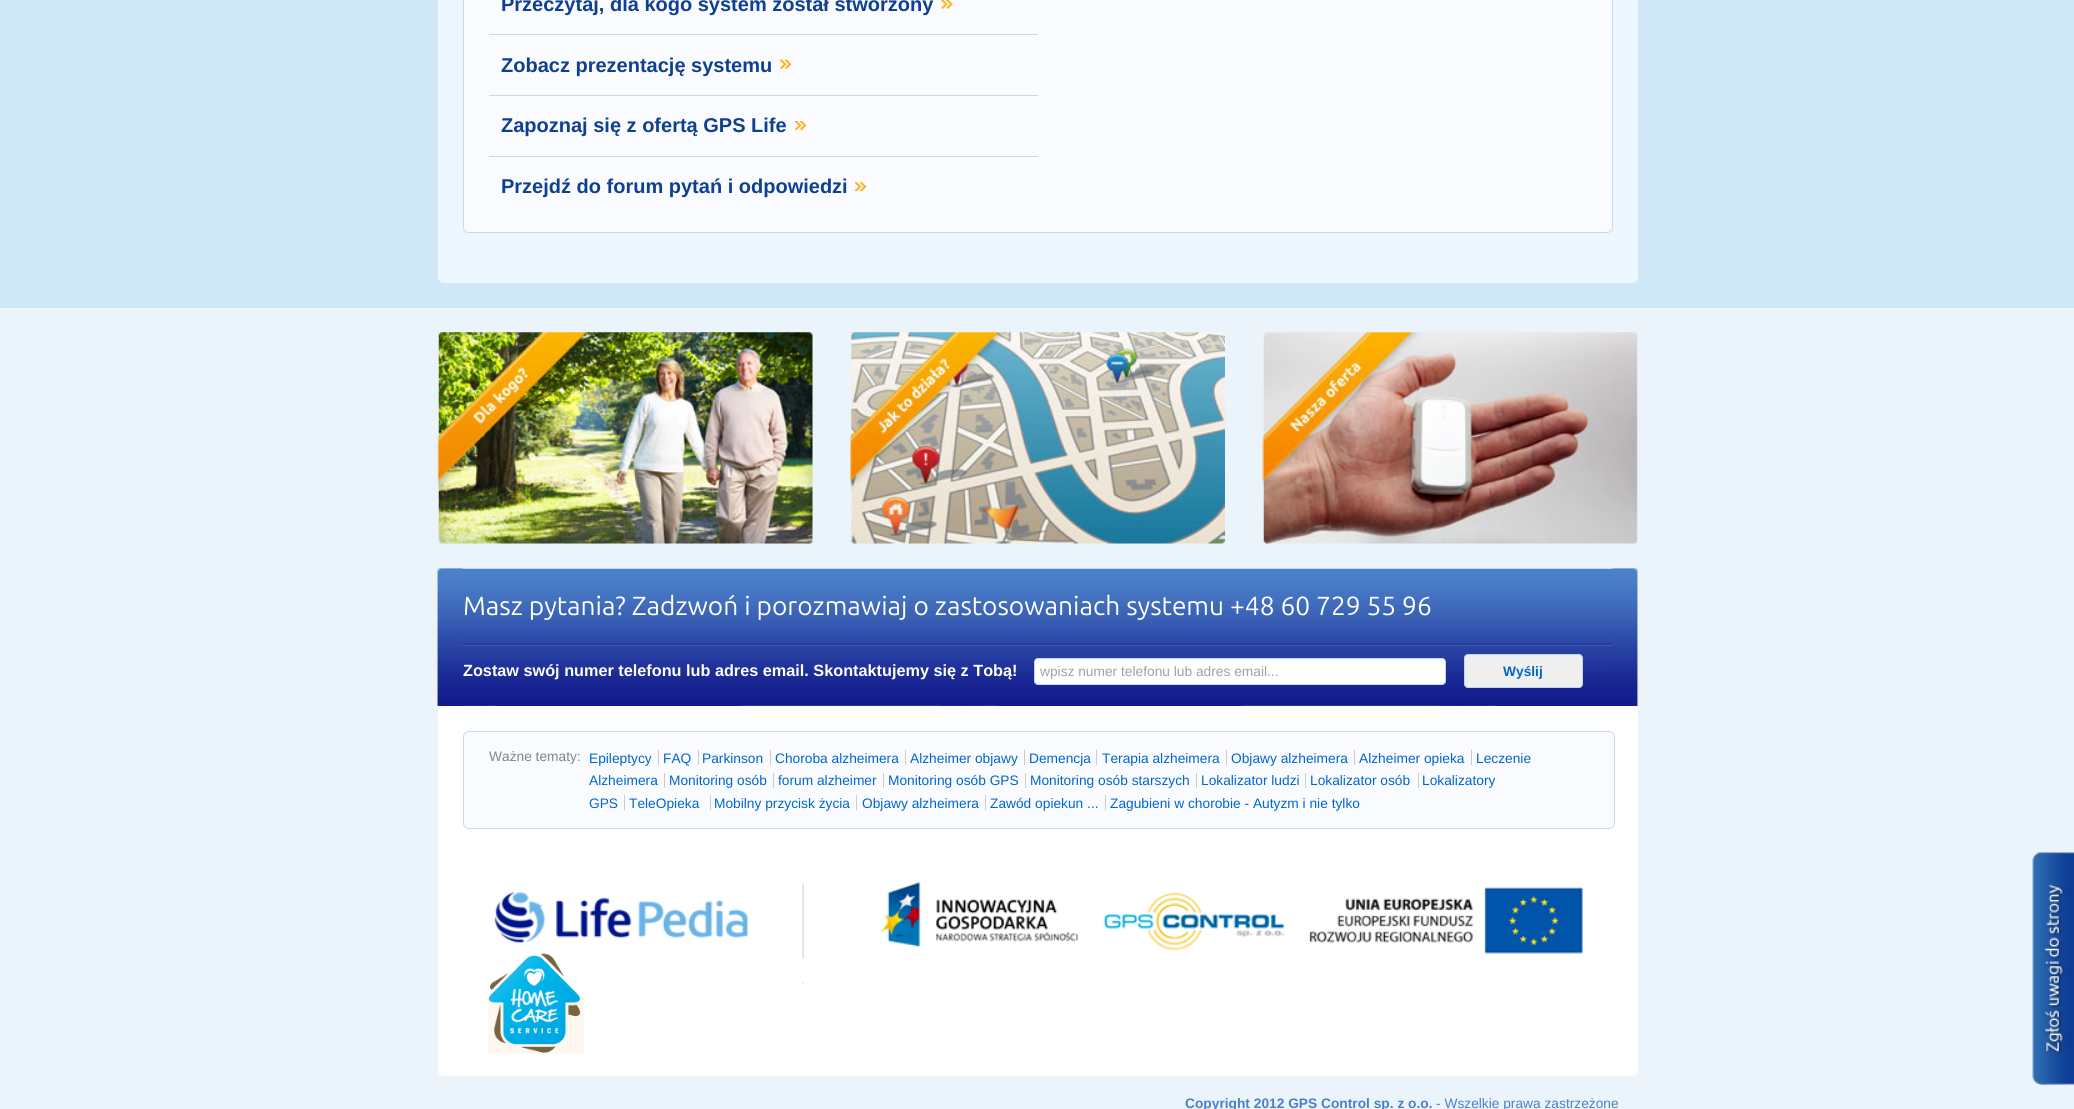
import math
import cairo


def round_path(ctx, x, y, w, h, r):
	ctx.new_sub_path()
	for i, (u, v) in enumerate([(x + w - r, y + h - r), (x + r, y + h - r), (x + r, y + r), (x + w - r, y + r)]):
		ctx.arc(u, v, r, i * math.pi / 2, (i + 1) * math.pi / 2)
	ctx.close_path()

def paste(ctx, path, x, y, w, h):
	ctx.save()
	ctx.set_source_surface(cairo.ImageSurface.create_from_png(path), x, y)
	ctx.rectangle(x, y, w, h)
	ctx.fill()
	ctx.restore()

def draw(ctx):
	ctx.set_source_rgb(0.816, 0.906, 0.969)
	ctx.paint()
	ctx.set_source_rgb(0.925, 0.969, 0.992)
	round_path(ctx, 438, -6, 1200, 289, 6)
	ctx.fill()
	ctx.set_source_rgb(0.98, 0.984, 1)
	round_path(ctx, 463.5, -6.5, 1149, 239, 5.5)
	ctx.fill_preserve()
	ctx.set_source_rgb(0.776, 0.859, 0.91)
	ctx.set_line_width(1)
	ctx.stroke()
	ctx.rectangle(489, 34, 549, 1)
	ctx.fill()
	ctx.select_font_face('Liberation Sans', cairo.FONT_SLANT_NORMAL, cairo.FONT_WEIGHT_BOLD)
	ctx.set_font_size(20)
	ctx.set_source_rgb(0.059, 0.251, 0.561)
	ctx.move_to(501, 11)
	ctx.show_text('Przeczytaj, dla kogo system został stworzony')
	paste(ctx, 'media/1.png', 941, 0, 12, 9)
	ctx.set_source_rgb(0.776, 0.859, 0.91)
	ctx.rectangle(489, 95, 549, 1)
	ctx.fill()
	ctx.set_source_rgb(0.059, 0.251, 0.561)
	ctx.move_to(501, 72)
	ctx.show_text('Zobacz prezentację systemu')
	paste(ctx, 'media/2.png', 780, 59, 12, 10)
	ctx.set_source_rgb(0.776, 0.859, 0.91)
	ctx.rectangle(489, 156, 549, 1)
	ctx.fill()
	ctx.set_source_rgb(0.059, 0.251, 0.561)
	ctx.move_to(501, 132)
	ctx.show_text('Zapoznaj się z ofertą GPS Life')
	paste(ctx, 'media/3.png', 795, 121, 12, 9)
	ctx.move_to(501, 193)
	ctx.show_text('Przejdź do forum pytań i odpowiedzi')
	paste(ctx, 'media/4.png', 855, 182, 12, 9)
	ctx.set_source_rgb(0.918, 0.957, 0.984)
	ctx.rectangle(0, 308, 2074, 801)
	ctx.fill()
	paste(ctx, 'media/5.png', 437, 332, 376, 212)
	paste(ctx, 'media/6.png', 850, 332, 375, 212)
	paste(ctx, 'media/7.png', 1262, 332, 376, 212)
	paste(ctx, 'media/8.png', 437, 568, 1201, 138)
	ctx.set_font_size(16.25)
	ctx.set_source_rgb(1, 1, 1)
	ctx.move_to(463, 676)
	ctx.show_text('Zostaw swój numer telefonu lub adres email. Skontaktujemy się z Tobą!')
	paste(ctx, 'media/9.png', 437, 568, 26, 138)
	ctx.select_font_face('Ubuntu')
	ctx.set_font_size(26.25)
	ctx.move_to(463, 615)
	ctx.show_text('Masz pytania? Zadzwoń i porozmawiaj o zastosowaniach systemu +48 60 729 55 96')
	round_path(ctx, 1034.5, 658.5, 411, 26, 3.5)
	ctx.fill_preserve()
	ctx.set_source_rgb(0.745, 0.851, 0.925)
	ctx.stroke()
	ctx.select_font_face('Liberation Sans')
	ctx.set_font_size(13.75)
	ctx.set_source_rgb(0.627, 0.627, 0.627)
	ctx.move_to(1040, 676)
	ctx.show_text('wpisz numer telefonu lub adres email...')
	ctx.set_source_rgb(0.937, 0.937, 0.937)
	round_path(ctx, 1464.5, 654.5, 118, 33, 3.5)
	ctx.fill_preserve()
	ctx.set_source_rgb(0.745, 0.851, 0.925)
	ctx.stroke()
	ctx.select_font_face('Liberation Sans', cairo.FONT_SLANT_NORMAL, cairo.FONT_WEIGHT_BOLD)
	ctx.set_source_rgb(0, 0.4, 0.8)
	ctx.move_to(1503, 676)
	ctx.show_text('Wyślij')
	paste(ctx, 'media/10.png', 1612, 568, 26, 138)
	ctx.set_source_rgb(1, 1, 1)
	ctx.new_path()
	ctx.move_to(438, 706)
	ctx.line_to(1638, 706)
	ctx.line_to(1638, 1070)
	ctx.curve_to(1638, 1073.5, 1635.5, 1076, 1632, 1076)
	ctx.line_to(444, 1076)
	ctx.curve_to(440.5, 1076, 438, 1073.5, 438, 1070)
	ctx.close_path()
	ctx.fill()
	paste(ctx, 'media/11.png', 494, 882, 1089, 102)
	ctx.set_source_rgb(0.98, 0.984, 1)
	round_path(ctx, 463.5, 731.5, 1151, 97, 5.5)
	ctx.fill_preserve()
	ctx.set_source_rgb(0.776, 0.859, 0.91)
	ctx.stroke()
	ctx.select_font_face('Liberation Sans')
	ctx.set_source_rgb(0.51, 0.518, 0.522)
	ctx.move_to(489, 761)
	ctx.show_text('Ważne tematy:')
	ctx.set_source_rgb(0, 0.4, 0.8)
	ctx.move_to(589, 763)
	ctx.show_text('Epileptycy')
	ctx.set_source_rgb(0.8, 0.8, 0.8)
	ctx.rectangle(658, 750, 1, 15)
	ctx.fill()
	ctx.set_source_rgb(0, 0.4, 0.8)
	ctx.move_to(663, 763)
	ctx.show_text('FAQ')
	ctx.set_source_rgb(0.8, 0.8, 0.8)
	ctx.rectangle(698, 750, 1, 15)
	ctx.fill()
	ctx.set_source_rgb(0, 0.4, 0.8)
	ctx.move_to(702, 763)
	ctx.show_text('Parkinson')
	ctx.set_source_rgb(0.8, 0.8, 0.8)
	ctx.rectangle(770, 750, 1, 15)
	ctx.fill()
	ctx.set_source_rgb(0, 0.4, 0.8)
	ctx.move_to(775, 763)
	ctx.show_text('Choroba alzheimera')
	ctx.set_source_rgb(0.8, 0.8, 0.8)
	ctx.rectangle(905, 750, 1, 15)
	ctx.fill()
	ctx.set_source_rgb(0, 0.4, 0.8)
	ctx.move_to(910, 763)
	ctx.show_text('Alzheimer objawy')
	ctx.set_source_rgb(0.8, 0.8, 0.8)
	ctx.rectangle(1024, 750, 1, 15)
	ctx.fill()
	ctx.set_source_rgb(0, 0.4, 0.8)
	ctx.move_to(1029, 763)
	ctx.show_text('Demencja')
	ctx.set_source_rgb(0.8, 0.8, 0.8)
	ctx.rectangle(1096, 750, 1, 15)
	ctx.fill()
	ctx.set_source_rgb(0, 0.4, 0.8)
	ctx.move_to(1102, 763)
	ctx.show_text('Terapia alzheimera')
	ctx.set_source_rgb(0.8, 0.8, 0.8)
	ctx.rectangle(1226, 750, 1, 15)
	ctx.fill()
	ctx.set_source_rgb(0, 0.4, 0.8)
	ctx.move_to(1231, 763)
	ctx.show_text('Objawy alzheimera')
	ctx.set_source_rgb(0.8, 0.8, 0.8)
	ctx.rectangle(1354, 750, 1, 15)
	ctx.fill()
	ctx.set_source_rgb(0, 0.4, 0.8)
	ctx.move_to(1359, 763)
	ctx.show_text('Alzheimer opieka')
	ctx.set_source_rgb(0.8, 0.8, 0.8)
	ctx.rectangle(1471, 750, 1, 15)
	ctx.fill()
	ctx.set_source_rgb(0, 0.4, 0.8)
	ctx.move_to(1476, 763)
	ctx.show_text('Leczenie')
	ctx.move_to(589, 785)
	ctx.show_text('Alzheimera')
	ctx.set_source_rgb(0.8, 0.8, 0.8)
	ctx.rectangle(664, 773, 1, 15)
	ctx.fill()
	ctx.set_source_rgb(0, 0.4, 0.8)
	ctx.move_to(669, 785)
	ctx.show_text('Monitoring osób')
	ctx.set_source_rgb(0.8, 0.8, 0.8)
	ctx.rectangle(773, 773, 1, 15)
	ctx.fill()
	ctx.set_source_rgb(0, 0.4, 0.8)
	ctx.move_to(778, 785)
	ctx.show_text('forum alzheimer')
	ctx.set_source_rgb(0.8, 0.8, 0.8)
	ctx.rectangle(883, 773, 1, 15)
	ctx.fill()
	ctx.set_source_rgb(0, 0.4, 0.8)
	ctx.move_to(888, 785)
	ctx.show_text('Monitoring osób GPS')
	ctx.set_source_rgb(0.8, 0.8, 0.8)
	ctx.rectangle(1025, 773, 1, 15)
	ctx.fill()
	ctx.set_source_rgb(0, 0.4, 0.8)
	ctx.move_to(1030, 785)
	ctx.show_text('Monitoring osób starszych')
	ctx.set_source_rgb(0.8, 0.8, 0.8)
	ctx.rectangle(1196, 773, 1, 15)
	ctx.fill()
	ctx.set_source_rgb(0, 0.4, 0.8)
	ctx.move_to(1201, 785)
	ctx.show_text('Lokalizator ludzi')
	ctx.set_source_rgb(0.8, 0.8, 0.8)
	ctx.rectangle(1305, 773, 1, 15)
	ctx.fill()
	ctx.set_source_rgb(0, 0.4, 0.8)
	ctx.move_to(1310, 785)
	ctx.show_text('Lokalizator osób')
	ctx.set_source_rgb(0.8, 0.8, 0.8)
	ctx.rectangle(1418, 773, 1, 15)
	ctx.fill()
	ctx.set_source_rgb(0, 0.4, 0.8)
	ctx.move_to(1422, 785)
	ctx.show_text('Lokalizatory')
	ctx.move_to(589, 808)
	ctx.show_text('GPS')
	ctx.set_source_rgb(0.8, 0.8, 0.8)
	ctx.rectangle(624, 795, 1, 15)
	ctx.fill()
	ctx.set_source_rgb(0, 0.4, 0.8)
	ctx.move_to(629, 808)
	ctx.show_text('TeleOpieka')
	ctx.set_source_rgb(0.8, 0.8, 0.8)
	ctx.rectangle(710, 795, 1, 15)
	ctx.fill()
	ctx.set_source_rgb(0, 0.4, 0.8)
	ctx.move_to(714, 808)
	ctx.show_text('Mobilny przycisk życia')
	ctx.set_source_rgb(0.8, 0.8, 0.8)
	ctx.rectangle(856, 795, 1, 15)
	ctx.fill()
	ctx.set_source_rgb(0, 0.4, 0.8)
	ctx.move_to(862, 808)
	ctx.show_text('Objawy alzheimera')
	ctx.set_source_rgb(0.8, 0.8, 0.8)
	ctx.rectangle(985, 795, 1, 15)
	ctx.fill()
	ctx.set_source_rgb(0, 0.4, 0.8)
	ctx.move_to(990, 808)
	ctx.show_text('Zawód opiekun ...')
	ctx.set_source_rgb(0.8, 0.8, 0.8)
	ctx.rectangle(1105, 795, 1, 15)
	ctx.fill()
	ctx.set_source_rgb(0, 0.4, 0.8)
	ctx.move_to(1110, 808)
	ctx.show_text('Zagubieni w chorobie - Autyzm i nie tylko')
	paste(ctx, 'media/12.png', 487, 953, 97, 101)
	ctx.select_font_face('Liberation Sans', cairo.FONT_SLANT_NORMAL, cairo.FONT_WEIGHT_BOLD)
	ctx.set_source_rgb(0.294, 0.502, 0.784)
	ctx.move_to(1185, 1108)
	ctx.show_text('Copyright 2012 GPS Control sp. z o.o.')
	ctx.select_font_face('Liberation Sans')
	ctx.move_to(1436, 1108)
	ctx.show_text('- Wszelkie prawa zastrzeżone')
	paste(ctx, 'media/13.png', 2032, 852, 42, 233)


surface = cairo.ImageSurface(cairo.FORMAT_RGB24, 2074, 1109)
ctx = cairo.Context(surface)
options = cairo.FontOptions()
options.set_hint_metrics(cairo.HINT_METRICS_OFF)
options.set_hint_style(cairo.HINT_STYLE_NONE)
ctx.set_font_options(options)
ctx.set_miter_limit(4)
draw(ctx)
surface.write_to_png('image.png')
